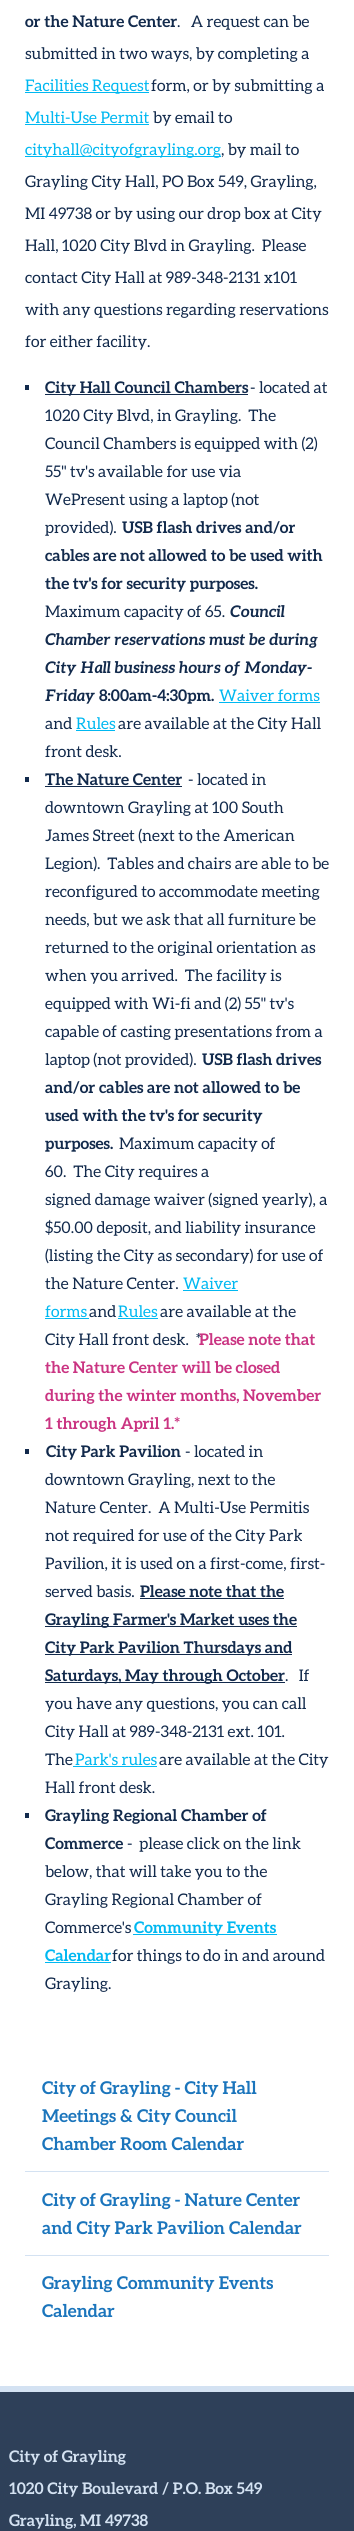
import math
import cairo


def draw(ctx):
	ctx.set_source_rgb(1, 1, 1)
	ctx.paint()
	ctx.select_font_face('Aleo', cairo.FONT_SLANT_NORMAL, cairo.FONT_WEIGHT_BOLD)
	ctx.set_font_size(16)
	ctx.set_source_rgb(0.071, 0.165, 0.298)
	ctx.move_to(25, 27)
	ctx.show_text('or the Nature Center')
	ctx.select_font_face('Aleo')
	ctx.move_to(177, 27)
	ctx.show_text('.   A request can be')
	ctx.move_to(25, 59)
	ctx.show_text('submitted in two ways, by completing a')
	ctx.set_source_rgb(0, 0.722, 0.945)
	ctx.rectangle(25, 92, 124, 1)
	ctx.fill()
	ctx.move_to(25, 91)
	ctx.show_text('Facilities Request')
	ctx.set_source_rgb(0.071, 0.165, 0.298)
	ctx.move_to(151, 91)
	ctx.show_text('form, or by submitting a')
	ctx.set_source_rgb(0, 0.722, 0.945)
	ctx.move_to(25, 123)
	ctx.show_text('Multi-Use Permit')
	ctx.rectangle(25, 124, 124, 1)
	ctx.fill()
	ctx.set_source_rgb(0.071, 0.165, 0.298)
	ctx.move_to(153, 123)
	ctx.show_text('by email to')
	ctx.set_source_rgb(0, 0.722, 0.945)
	ctx.rectangle(25, 156, 196, 1)
	ctx.fill()
	ctx.move_to(25, 155)
	ctx.show_text('cityhall@cityofgrayling.org')
	ctx.set_source_rgb(0.071, 0.165, 0.298)
	for x, y, s in [
		(221, 155, ', by mail to'),
		(25, 187, 'Grayling City Hall, PO Box 549, Grayling,'),
		(25, 219, 'MI 49738 or by using our drop box at City'),
		(25, 251, 'Hall, 1020 City Blvd in Grayling.  Please'),
		(25, 283, 'contact City Hall at 989-348-2131 x101'),
		(25, 315, 'with any questions regarding reservations'),
		(25, 347, 'for either facility.'),
	]:
		ctx.move_to(x, y)
		ctx.show_text(s)
	ctx.rectangle(25, 385, 4, 5)
	ctx.fill()
	ctx.rectangle(45, 394, 203, 1)
	ctx.fill()
	ctx.select_font_face('Aleo', cairo.FONT_SLANT_NORMAL, cairo.FONT_WEIGHT_BOLD)
	ctx.move_to(45, 393)
	ctx.show_text('City Hall Council Chambers')
	ctx.select_font_face('Aleo')
	for x, y, s in [
		(250, 393, '- located at'),
		(45, 421, '1020 City Blvd, in Grayling.  The'),
		(45, 449, 'Council Chambers is equipped with (2)'),
		(45, 477, '55" tv\'s available for use via'),
		(45, 505, 'WePresent using a laptop (not'),
		(45, 533, 'provided).'),
	]:
		ctx.move_to(x, y)
		ctx.show_text(s)
	ctx.select_font_face('Aleo', cairo.FONT_SLANT_NORMAL, cairo.FONT_WEIGHT_BOLD)
	for x, y, s in [
		(122, 533, 'USB flash drives and/or'),
		(45, 561, 'cables are not allowed to be used with'),
		(45, 589, 'the tv\'s for security purposes.'),
	]:
		ctx.move_to(x, y)
		ctx.show_text(s)
	ctx.select_font_face('Aleo')
	ctx.move_to(45, 617)
	ctx.show_text('Maximum capacity of 65.')
	ctx.select_font_face('Aleo', cairo.FONT_SLANT_ITALIC, cairo.FONT_WEIGHT_BOLD)
	for x, y, s in [
		(230, 617, 'Council'),
		(45, 645, 'Chamber reservations must be during'),
		(45, 673, 'City Hall business hours of Monday-'),
		(45, 701, 'Friday'),
	]:
		ctx.move_to(x, y)
		ctx.show_text(s)
	ctx.select_font_face('Aleo', cairo.FONT_SLANT_NORMAL, cairo.FONT_WEIGHT_BOLD)
	ctx.move_to(99, 701)
	ctx.show_text('8:00am-4:30pm.')
	ctx.select_font_face('Aleo')
	ctx.set_source_rgb(0, 0.722, 0.945)
	ctx.move_to(219, 701)
	ctx.show_text('Waiver forms')
	ctx.rectangle(219, 702, 101, 1)
	ctx.fill()
	ctx.set_source_rgb(0.071, 0.165, 0.298)
	ctx.move_to(45, 729)
	ctx.show_text('and')
	ctx.set_source_rgb(0, 0.722, 0.945)
	ctx.move_to(76, 729)
	ctx.show_text('Rules')
	ctx.rectangle(76, 730, 39, 1)
	ctx.fill()
	ctx.set_source_rgb(0.071, 0.165, 0.298)
	ctx.move_to(118, 729)
	ctx.show_text('are available at the City Hall')
	ctx.move_to(45, 757)
	ctx.show_text('front desk.')
	ctx.rectangle(25, 777, 4, 5)
	ctx.fill()
	ctx.select_font_face('Aleo', cairo.FONT_SLANT_NORMAL, cairo.FONT_WEIGHT_BOLD)
	ctx.move_to(45, 785)
	ctx.show_text('The Nature Center')
	ctx.rectangle(45, 786, 137, 1)
	ctx.fill()
	ctx.select_font_face('Aleo')
	for x, y, s in [
		(188, 785, '- located in'),
		(45, 813, 'downtown Grayling at 100 South'),
		(45, 841, 'James Street (next to the American'),
		(45, 869, 'Legion).  Tables and chairs are able to be'),
		(45, 897, 'reconfigured to accommodate meeting'),
		(45, 925, 'needs, but we ask that all furniture be'),
		(45, 953, 'returned to the original orientation as'),
		(45, 981, 'when you arrived.  The facility is'),
		(45, 1009, 'equipped with Wi-fi and (2) 55" tv\'s'),
		(45, 1037, 'capable of casting presentations from a'),
		(45, 1065, 'laptop (not provided).'),
	]:
		ctx.move_to(x, y)
		ctx.show_text(s)
	ctx.select_font_face('Aleo', cairo.FONT_SLANT_NORMAL, cairo.FONT_WEIGHT_BOLD)
	for x, y, s in [
		(202, 1065, 'USB flash drives'),
		(45, 1093, 'and/or cables are not allowed to be'),
		(45, 1121, 'used with the tv\'s for security'),
		(45, 1149, 'purposes.'),
	]:
		ctx.move_to(x, y)
		ctx.show_text(s)
	ctx.select_font_face('Aleo')
	for x, y, s in [
		(119, 1149, 'Maximum capacity of'),
		(45, 1177, '60.  The City requires a'),
		(45, 1205, 'signed damage waiver (signed yearly), a'),
		(45, 1233, '$50.00 deposit, and liability insurance'),
		(45, 1261, '(listing the City as secondary) for use of'),
		(45, 1289, 'the Nature Center.'),
	]:
		ctx.move_to(x, y)
		ctx.show_text(s)
	ctx.set_source_rgb(0, 0.722, 0.945)
	ctx.move_to(183, 1289)
	ctx.show_text('Waiver')
	ctx.rectangle(183, 1290, 55, 1)
	ctx.fill()
	ctx.move_to(45, 1317)
	ctx.show_text('forms')
	ctx.rectangle(45, 1318, 44, 1)
	ctx.fill()
	ctx.set_source_rgb(0.071, 0.165, 0.298)
	ctx.move_to(89, 1317)
	ctx.show_text('and')
	ctx.set_source_rgb(0, 0.722, 0.945)
	ctx.move_to(118, 1317)
	ctx.show_text('Rules')
	ctx.rectangle(118, 1318, 40, 1)
	ctx.fill()
	ctx.set_source_rgb(0.071, 0.165, 0.298)
	ctx.move_to(160, 1317)
	ctx.show_text('are available at the')
	ctx.move_to(45, 1345)
	ctx.show_text('City Hall front desk.  *')
	ctx.select_font_face('Aleo', cairo.FONT_SLANT_NORMAL, cairo.FONT_WEIGHT_BOLD)
	ctx.set_source_rgb(0.792, 0.204, 0.51)
	for x, y, s in [
		(199, 1345, 'Please note that'),
		(45, 1373, 'the Nature Center will be closed'),
		(45, 1401, 'during the winter months, November'),
		(45, 1429, '1 through April 1.*'),
	]:
		ctx.move_to(x, y)
		ctx.show_text(s)
	ctx.set_source_rgb(0.071, 0.165, 0.298)
	ctx.rectangle(25, 1449, 4, 5)
	ctx.fill()
	ctx.move_to(46, 1457)
	ctx.show_text('City Park Pavilion')
	ctx.select_font_face('Aleo')
	for x, y, s in [
		(185, 1457, '- located in'),
		(45, 1485, 'downtown Grayling, next to the'),
		(45, 1513, 'Nature Center.  A Multi-Use Permit'),
		(298, 1513, 'is'),
		(45, 1541, 'not required for use of the City Park'),
		(45, 1569, 'Pavilion, it is used on a first-come, first-'),
		(45, 1597, 'served basis.'),
	]:
		ctx.move_to(x, y)
		ctx.show_text(s)
	ctx.select_font_face('Aleo', cairo.FONT_SLANT_NORMAL, cairo.FONT_WEIGHT_BOLD)
	ctx.move_to(140, 1597)
	ctx.show_text('Please note that the')
	ctx.rectangle(140, 1598, 144, 1)
	ctx.fill()
	ctx.rectangle(45, 1626, 252, 1)
	ctx.fill()
	ctx.move_to(45, 1625)
	ctx.show_text('Grayling Farmer\'s Market uses the')
	ctx.rectangle(45, 1654, 247, 1)
	ctx.fill()
	ctx.move_to(45, 1653)
	ctx.show_text('City Park Pavilion Thursdays and')
	ctx.rectangle(45, 1682, 240, 1)
	ctx.fill()
	ctx.move_to(45, 1681)
	ctx.show_text('Saturdays, May through October')
	ctx.select_font_face('Aleo')
	for x, y, s in [
		(285, 1681, '.   If'),
		(45, 1709, 'you have any questions, you can call'),
		(45, 1737, 'City Hall at 989-348-2131 ext. 101.'),
		(45, 1765, 'The'),
	]:
		ctx.move_to(x, y)
		ctx.show_text(s)
	ctx.set_source_rgb(0, 0.722, 0.945)
	ctx.move_to(75, 1765)
	ctx.show_text('Park\'s rules')
	ctx.rectangle(73, 1766, 84, 1)
	ctx.fill()
	ctx.set_source_rgb(0.071, 0.165, 0.298)
	ctx.move_to(159, 1765)
	ctx.show_text('are available at the City')
	ctx.move_to(45, 1793)
	ctx.show_text('Hall front desk.')
	ctx.rectangle(25, 1813, 4, 5)
	ctx.fill()
	ctx.select_font_face('Aleo', cairo.FONT_SLANT_NORMAL, cairo.FONT_WEIGHT_BOLD)
	ctx.move_to(45, 1821)
	ctx.show_text('Grayling Regional Chamber of')
	ctx.move_to(45, 1849)
	ctx.show_text('Commerce')
	ctx.select_font_face('Aleo')
	for x, y, s in [
		(127, 1849, '-  please click on the link'),
		(45, 1877, 'below, that will take you to the'),
		(45, 1905, 'Grayling Regional Chamber of'),
		(45, 1933, 'Commerce\'s'),
	]:
		ctx.move_to(x, y)
		ctx.show_text(s)
	ctx.set_source_rgb(0, 0.722, 0.945)
	ctx.rectangle(133, 1934, 144, 1)
	ctx.fill()
	ctx.select_font_face('Aleo', cairo.FONT_SLANT_NORMAL, cairo.FONT_WEIGHT_BOLD)
	ctx.move_to(134, 1933)
	ctx.show_text('Community Events')
	ctx.move_to(45, 1961)
	ctx.show_text('Calendar')
	ctx.rectangle(45, 1962, 66, 1)
	ctx.fill()
	ctx.select_font_face('Aleo')
	ctx.set_source_rgb(0.071, 0.165, 0.298)
	ctx.move_to(112, 1961)
	ctx.show_text('for things to do in and around')
	ctx.move_to(45, 1989)
	ctx.show_text('Grayling.')
	ctx.set_source_rgb(0.831, 0.886, 0.949)
	ctx.rectangle(25, 2171, 304, 1)
	ctx.fill()
	ctx.select_font_face('Aleo', cairo.FONT_SLANT_NORMAL, cairo.FONT_WEIGHT_BOLD)
	ctx.set_font_size(17.6)
	ctx.set_source_rgb(0.106, 0.459, 0.737)
	for x, y, s in [
		(42, 2094, 'City of Grayling - City Hall'),
		(42, 2122, 'Meetings & City Council'),
		(42, 2150, 'Chamber Room Calendar'),
	]:
		ctx.move_to(x, y)
		ctx.show_text(s)
	ctx.set_source_rgb(0.831, 0.886, 0.949)
	ctx.rectangle(25, 2255, 304, 1)
	ctx.fill()
	ctx.set_source_rgb(0.106, 0.459, 0.737)
	for x, y, s in [
		(42, 2206, 'City of Grayling - Nature Center'),
		(42, 2234, 'and City Park Pavilion Calendar'),
		(42, 2289, 'Grayling Community Events'),
		(42, 2317, 'Calendar'),
	]:
		ctx.move_to(x, y)
		ctx.show_text(s)
	ctx.set_source_rgb(0.18, 0.251, 0.349)
	ctx.rectangle(0, 2392, 354, 139)
	ctx.fill()
	ctx.set_source_rgb(0.831, 0.886, 0.949)
	ctx.rectangle(0, 2386, 354, 6)
	ctx.fill()
	ctx.set_font_size(16)
	for x, y, s in [
		(9, 2462, 'City of Grayling'),
		(9, 2494, '1020 City Boulevard / P.O. Box 549'),
		(9, 2526, 'Grayling, MI 49738'),
	]:
		ctx.move_to(x, y)
		ctx.show_text(s)


surface = cairo.ImageSurface(cairo.FORMAT_RGB24, 354, 2531)
ctx = cairo.Context(surface)
options = cairo.FontOptions()
options.set_hint_metrics(cairo.HINT_METRICS_OFF)
options.set_hint_style(cairo.HINT_STYLE_NONE)
ctx.set_font_options(options)
ctx.set_miter_limit(4)
draw(ctx)
surface.write_to_png('image.png')
